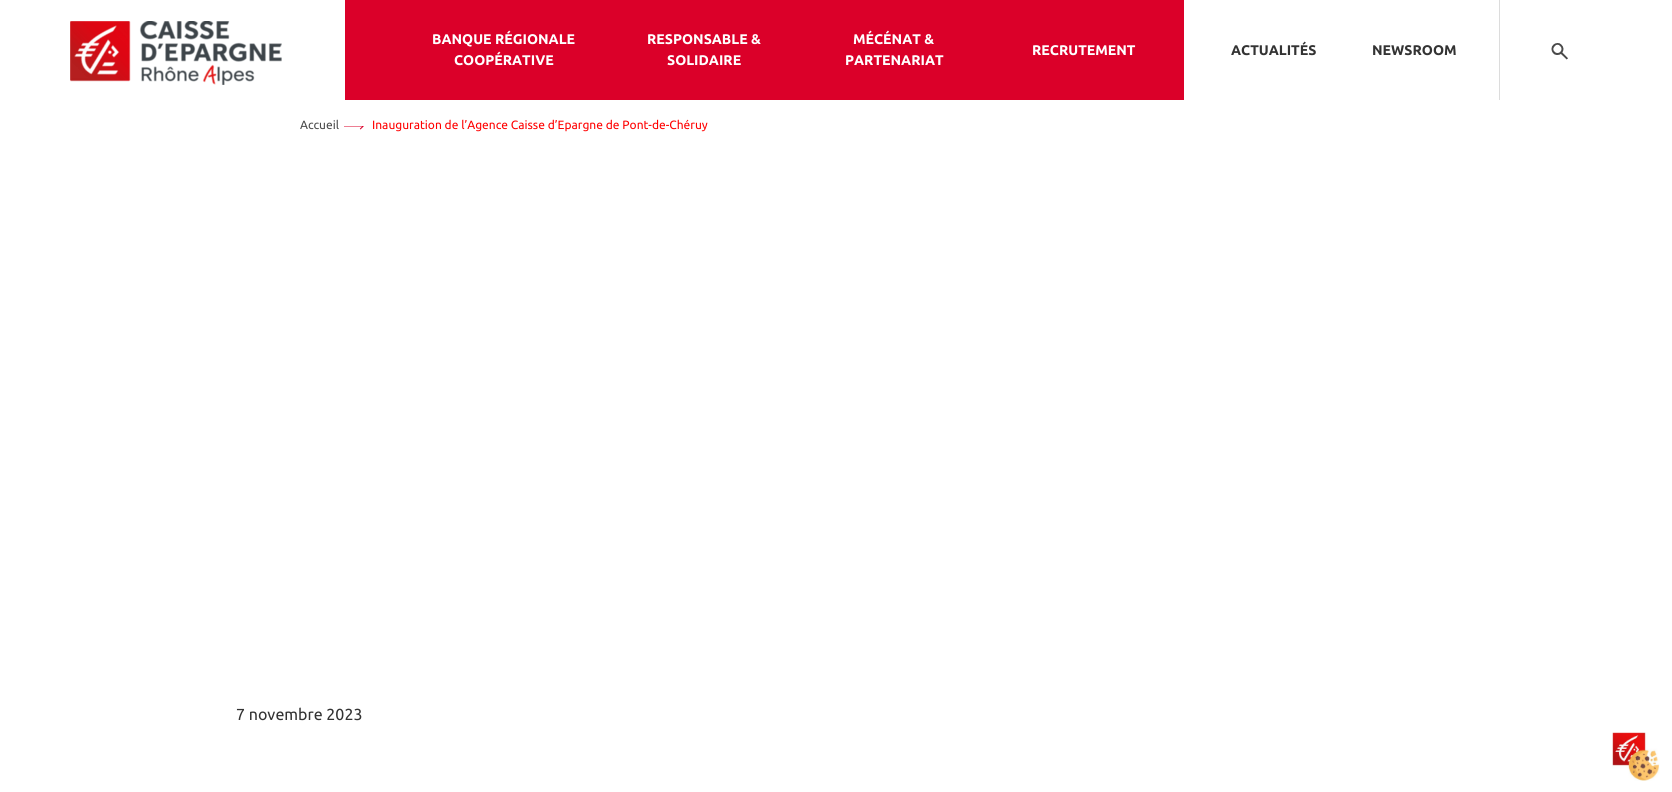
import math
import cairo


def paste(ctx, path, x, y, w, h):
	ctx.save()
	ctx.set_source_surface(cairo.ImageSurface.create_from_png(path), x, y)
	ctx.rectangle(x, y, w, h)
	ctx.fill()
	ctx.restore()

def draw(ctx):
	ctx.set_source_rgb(1, 1, 1)
	ctx.paint()
	ctx.set_source_rgb(0.863, 0.863, 0.863)
	ctx.rectangle(1499, 0, 1, 100)
	ctx.fill()
	paste(ctx, 'media/1.png', 70, 21, 212, 64)
	ctx.set_source_rgb(0.859, 0, 0.161)
	ctx.rectangle(345, 0, 839, 100)
	ctx.fill()
	ctx.select_font_face('Ubuntu', cairo.FONT_SLANT_NORMAL, cairo.FONT_WEIGHT_BOLD)
	ctx.set_font_size(14)
	ctx.set_source_rgb(1, 1, 1)
	for x, y, s in [
		(432, 44, 'BANQUE RÉGIONALE'),
		(454, 65, 'COOPÉRATIVE'),
		(647, 44, 'RESPONSABLE &'),
		(667, 65, 'SOLIDAIRE'),
		(853, 44, 'MÉCÉNAT &'),
		(845, 65, 'PARTENARIAT'),
		(1032, 55, 'RECRUTEMENT'),
	]:
		ctx.move_to(x, y)
		ctx.show_text(s)
	ctx.set_source_rgb(0.2, 0.2, 0.2)
	ctx.move_to(1231, 55)
	ctx.show_text('ACTUALITÉS')
	ctx.move_to(1372, 55)
	ctx.show_text('NEWSROOM')
	paste(ctx, 'media/2.png', 1551, 43, 17, 17)
	ctx.select_font_face('Ubuntu')
	ctx.set_font_size(12)
	ctx.set_source_rgb(0.29, 0.29, 0.29)
	ctx.move_to(300, 129)
	ctx.show_text('Accueil')
	paste(ctx, 'media/3.png', 344, 126, 20, 4)
	ctx.set_source_rgb(1, 0, 0)
	ctx.move_to(372, 129)
	ctx.show_text('Inauguration de l’Agence Caisse d’Epargne de Pont-de-Chéruy')
	ctx.set_font_size(16)
	ctx.set_source_rgb(0.2, 0.2, 0.2)
	ctx.move_to(236, 720)
	ctx.show_text('7 novembre 2023')
	paste(ctx, 'media/4.png', 1612, 732, 48, 49)


surface = cairo.ImageSurface(cairo.FORMAT_RGB24, 1672, 792)
ctx = cairo.Context(surface)
options = cairo.FontOptions()
options.set_hint_metrics(cairo.HINT_METRICS_OFF)
options.set_hint_style(cairo.HINT_STYLE_NONE)
ctx.set_font_options(options)
ctx.set_miter_limit(4)
draw(ctx)
surface.write_to_png('image.png')
